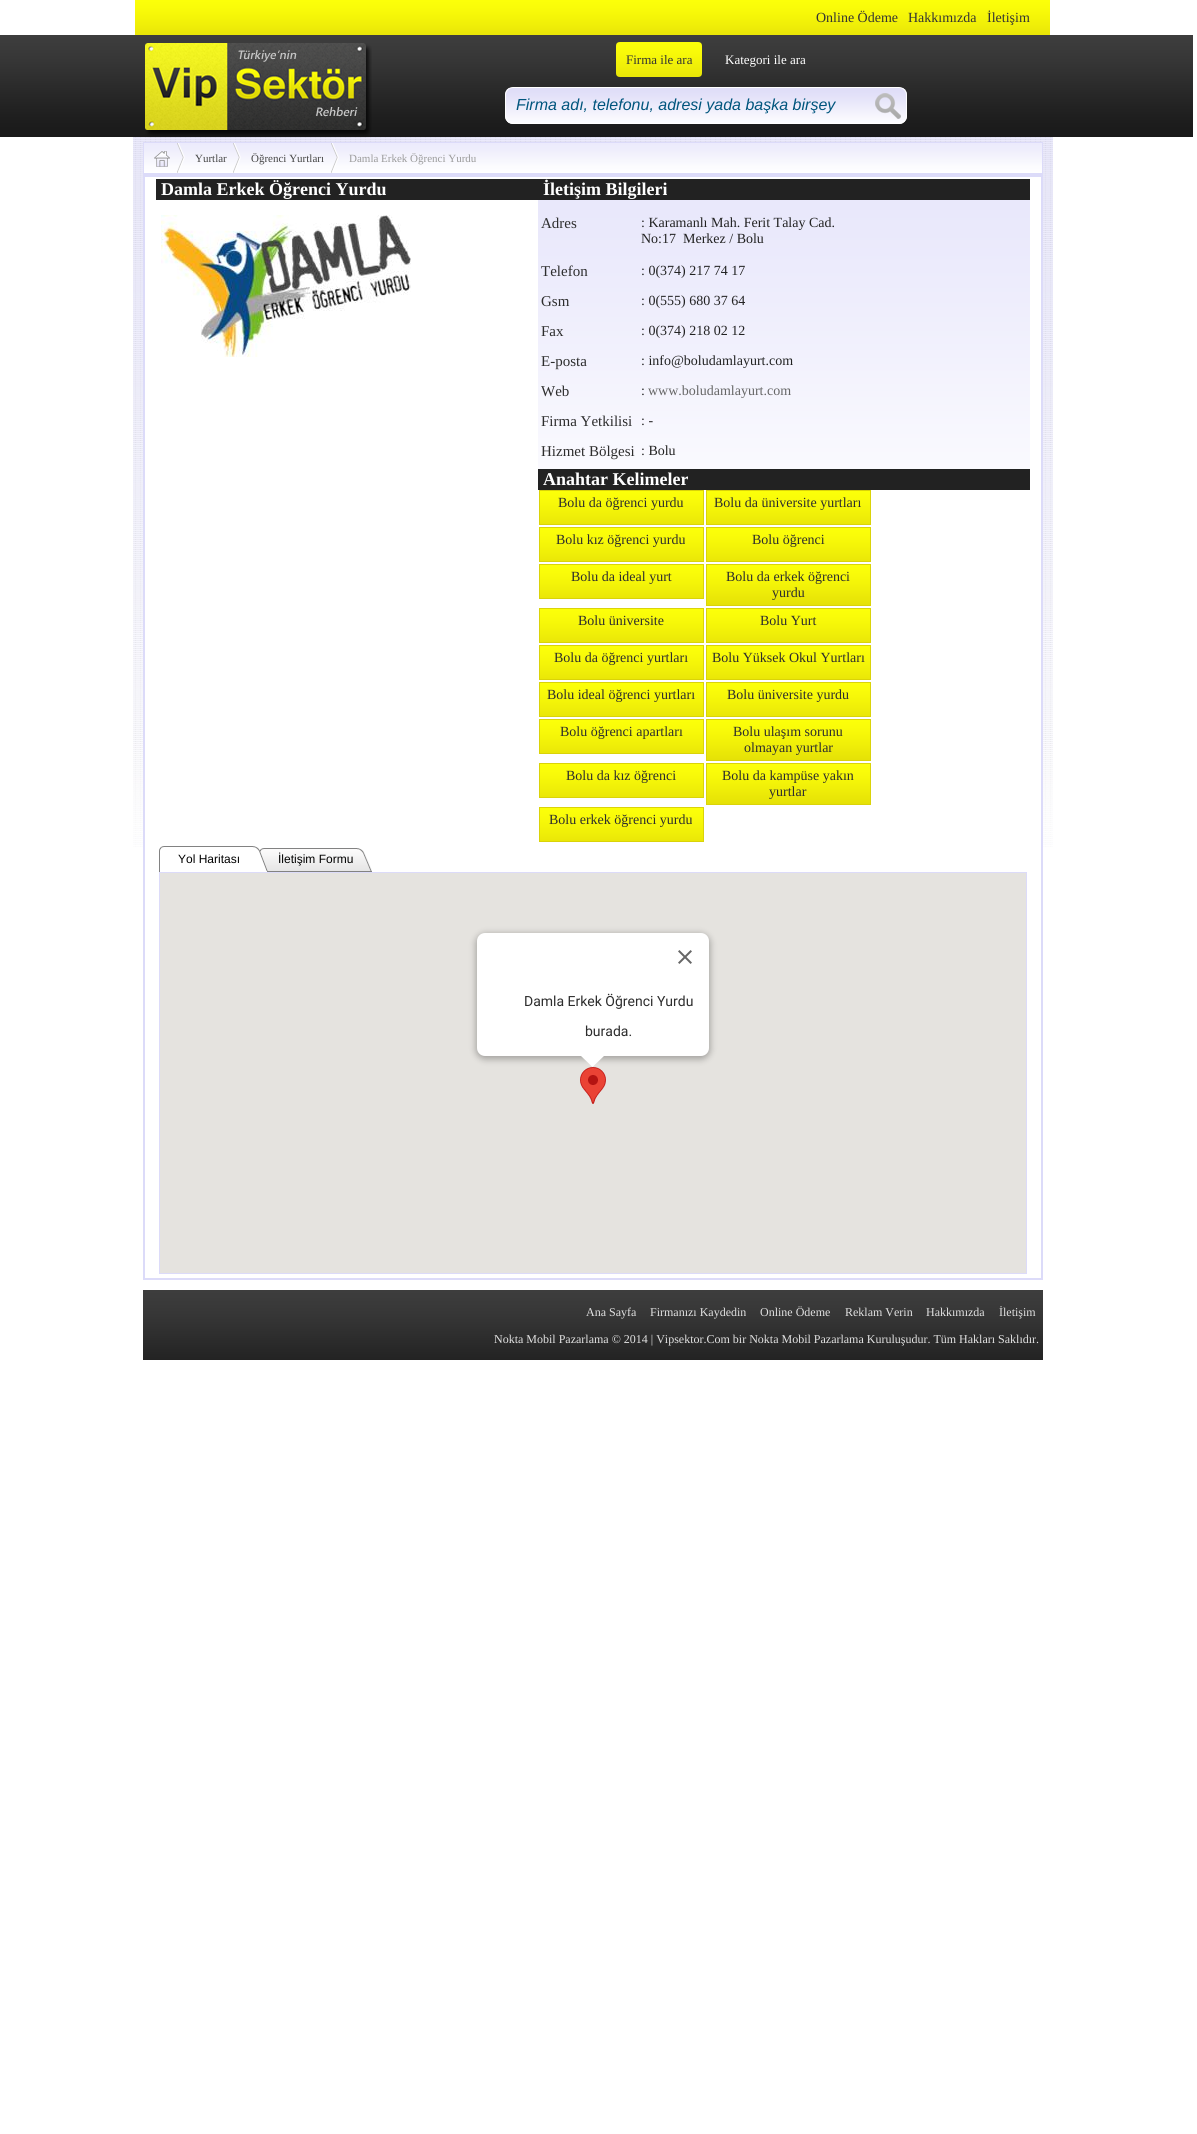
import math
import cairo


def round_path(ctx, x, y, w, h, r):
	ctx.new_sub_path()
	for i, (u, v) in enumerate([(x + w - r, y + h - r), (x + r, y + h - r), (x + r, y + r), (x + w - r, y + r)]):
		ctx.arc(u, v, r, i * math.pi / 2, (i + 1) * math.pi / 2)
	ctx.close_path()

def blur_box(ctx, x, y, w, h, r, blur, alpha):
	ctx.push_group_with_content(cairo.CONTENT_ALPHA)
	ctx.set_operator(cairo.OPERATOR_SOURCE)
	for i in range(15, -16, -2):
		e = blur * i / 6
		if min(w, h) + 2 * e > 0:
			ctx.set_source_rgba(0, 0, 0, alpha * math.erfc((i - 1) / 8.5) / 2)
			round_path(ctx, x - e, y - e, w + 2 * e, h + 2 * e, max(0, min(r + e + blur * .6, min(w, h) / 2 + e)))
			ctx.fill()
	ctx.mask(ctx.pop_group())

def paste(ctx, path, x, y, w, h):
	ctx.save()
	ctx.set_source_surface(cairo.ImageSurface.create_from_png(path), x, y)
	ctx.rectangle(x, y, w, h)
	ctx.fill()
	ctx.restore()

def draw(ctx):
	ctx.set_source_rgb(1, 1, 1)
	ctx.paint()
	paste(ctx, 'media/1.png', 135, 0, 915, 35)
	ctx.select_font_face('Liberation Serif')
	ctx.set_font_size(14)
	ctx.set_source_rgb(0.2, 0.2, 0.2)
	for x, y, s in [
		(816, 22, 'Online Ödeme'),
		(908, 22, 'Hakkımızda'),
		(987, 22, 'İletişim'),
	]:
		ctx.move_to(x, y)
		ctx.show_text(s)
	paste(ctx, 'media/2.png', 0, 35, 1193, 102)
	paste(ctx, 'media/7.png', 133, 137, 920, 710)
	paste(ctx, 'media/3.png', 145, 43, 227, 95)
	paste(ctx, 'media/4.png', 616, 42, 86, 35)
	ctx.set_font_size(13)
	ctx.move_to(626, 64)
	ctx.show_text('Firma ile ara')
	ctx.set_source_rgb(1, 1, 1)
	ctx.move_to(725, 64)
	ctx.show_text('Kategori ile ara')
	paste(ctx, 'media/5.png', 505, 88, 402, 36)
	round_path(ctx, 505.5, 87.5, 401, 36, 7.5)
	ctx.set_line_width(1)
	ctx.stroke()
	ctx.select_font_face('Liberation Sans', cairo.FONT_SLANT_ITALIC)
	ctx.set_font_size(16)
	ctx.set_source_rgb(0, 0.333, 0.49)
	ctx.move_to(516, 110)
	ctx.show_text('Firma adı, telefonu, adresi yada başka birşey')
	paste(ctx, 'media/6.png', 875, 93, 26, 26)
	ctx.rectangle(143.5, 142.5, 899, 32)
	ctx.set_source_rgb(0.863, 0.859, 0.976)
	ctx.stroke()
	paste(ctx, 'media/8.png', 144, 143, 898, 30)
	ctx.rectangle(144, 173, 898, 1)
	ctx.fill()
	paste(ctx, 'media/9.png', 177, 143, 8, 30)
	paste(ctx, 'media/10.png', 154, 151, 16, 16)
	paste(ctx, 'media/9.png', 233, 143, 8, 30)
	ctx.select_font_face('Liberation Serif')
	ctx.set_font_size(11)
	ctx.set_source_rgb(0.271, 0.271, 0.271)
	ctx.move_to(195, 162)
	ctx.show_text('Yurtlar')
	paste(ctx, 'media/9.png', 331, 143, 8, 30)
	ctx.move_to(251, 162)
	ctx.show_text('Öğrenci Yurtları')
	ctx.set_source_rgb(0.608, 0.608, 0.608)
	ctx.move_to(349, 162)
	ctx.show_text('Damla Erkek Öğrenci Yurdu')
	ctx.rectangle(143.5, 175.5, 899, 1104)
	ctx.set_source_rgb(0.863, 0.859, 0.976)
	ctx.stroke()
	ctx.set_source_rgb(1, 1, 1)
	ctx.rectangle(145, 177, 896, 670)
	ctx.fill()
	ctx.rectangle(144.5, 176.5, 897, 1102)
	ctx.set_source_rgb(0.863, 0.859, 0.976)
	ctx.stroke()
	ctx.set_source_rgb(0.133, 0.133, 0.133)
	ctx.rectangle(156, 179, 874, 21)
	ctx.fill()
	ctx.select_font_face('Liberation Serif', cairo.FONT_SLANT_NORMAL, cairo.FONT_WEIGHT_BOLD)
	ctx.set_font_size(18)
	ctx.set_source_rgb(1, 1, 1)
	ctx.move_to(161, 195)
	ctx.show_text('Damla Erkek Öğrenci Yurdu')
	paste(ctx, 'media/11.png', 161, 215, 250, 142)
	paste(ctx, 'media/12.png', 538, 200, 492, 269)
	ctx.move_to(543, 195)
	ctx.show_text('İletişim Bilgileri')
	ctx.select_font_face('Liberation Serif')
	ctx.set_font_size(15)
	ctx.set_source_rgb(0.176, 0.176, 0.176)
	ctx.move_to(541, 228)
	ctx.show_text('Adres')
	ctx.set_font_size(14)
	ctx.set_source_rgb(0.133, 0.133, 0.133)
	ctx.move_to(641, 227)
	ctx.show_text(': Karamanlı Mah. Ferit Talay Cad.')
	ctx.move_to(641, 243)
	ctx.show_text('No:17  Merkez / Bolu')
	ctx.set_font_size(15)
	ctx.set_source_rgb(0.176, 0.176, 0.176)
	ctx.move_to(541, 276)
	ctx.show_text('Telefon')
	ctx.set_font_size(14)
	ctx.set_source_rgb(0.133, 0.133, 0.133)
	ctx.move_to(641, 275)
	ctx.show_text(': 0(374) 217 74 17')
	ctx.set_font_size(15)
	ctx.set_source_rgb(0.176, 0.176, 0.176)
	ctx.move_to(541, 306)
	ctx.show_text('Gsm')
	ctx.set_font_size(14)
	ctx.set_source_rgb(0.133, 0.133, 0.133)
	ctx.move_to(641, 305)
	ctx.show_text(': 0(555) 680 37 64')
	ctx.set_font_size(15)
	ctx.set_source_rgb(0.176, 0.176, 0.176)
	ctx.move_to(541, 336)
	ctx.show_text('Fax')
	ctx.set_font_size(14)
	ctx.set_source_rgb(0.133, 0.133, 0.133)
	ctx.move_to(641, 335)
	ctx.show_text(': 0(374) 218 02 12')
	ctx.set_font_size(15)
	ctx.set_source_rgb(0.176, 0.176, 0.176)
	ctx.move_to(541, 366)
	ctx.show_text('E-posta')
	ctx.set_font_size(14)
	ctx.set_source_rgb(0.133, 0.133, 0.133)
	ctx.move_to(641, 365)
	ctx.show_text(': info@boludamlayurt.com')
	ctx.set_font_size(15)
	ctx.set_source_rgb(0.176, 0.176, 0.176)
	ctx.move_to(541, 396)
	ctx.show_text('Web')
	ctx.set_font_size(14)
	ctx.set_source_rgb(0.133, 0.133, 0.133)
	ctx.move_to(641, 395)
	ctx.show_text(':')
	ctx.set_source_rgb(0.4, 0.4, 0.4)
	ctx.move_to(648, 395)
	ctx.show_text('www.boludamlayurt.com')
	ctx.set_font_size(15)
	ctx.set_source_rgb(0.176, 0.176, 0.176)
	ctx.move_to(541, 426)
	ctx.show_text('Firma Yetkilisi')
	ctx.set_font_size(14)
	ctx.set_source_rgb(0.133, 0.133, 0.133)
	ctx.move_to(641, 425)
	ctx.show_text(': -')
	ctx.set_font_size(15)
	ctx.set_source_rgb(0.176, 0.176, 0.176)
	ctx.move_to(541, 456)
	ctx.show_text('Hizmet Bölgesi')
	ctx.set_font_size(14)
	ctx.set_source_rgb(0.133, 0.133, 0.133)
	ctx.move_to(641, 455)
	ctx.show_text(': Bolu')
	ctx.rectangle(538, 469, 492, 21)
	ctx.fill()
	ctx.select_font_face('Liberation Serif', cairo.FONT_SLANT_NORMAL, cairo.FONT_WEIGHT_BOLD)
	ctx.set_font_size(18)
	ctx.set_source_rgb(1, 1, 1)
	ctx.move_to(543, 485)
	ctx.show_text('Anahtar Kelimeler')
	paste(ctx, 'media/13.png', 540, 491, 163, 33)
	ctx.rectangle(539.5, 490.5, 164, 34)
	ctx.set_source_rgb(0.855, 0.827, 0.039)
	ctx.stroke()
	ctx.select_font_face('Liberation Serif')
	ctx.set_font_size(14)
	ctx.set_source_rgb(0.176, 0.176, 0.176)
	ctx.move_to(558, 507)
	ctx.show_text('Bolu da öğrenci yurdu')
	paste(ctx, 'media/13.png', 707, 491, 163, 33)
	ctx.rectangle(706.5, 490.5, 164, 34)
	ctx.set_source_rgb(0.855, 0.827, 0.039)
	ctx.stroke()
	ctx.set_source_rgb(0.176, 0.176, 0.176)
	ctx.move_to(714, 507)
	ctx.show_text('Bolu da üniversite yurtları')
	paste(ctx, 'media/13.png', 540, 528, 163, 33)
	ctx.rectangle(539.5, 527.5, 164, 34)
	ctx.set_source_rgb(0.855, 0.827, 0.039)
	ctx.stroke()
	ctx.set_source_rgb(0.176, 0.176, 0.176)
	ctx.move_to(556, 544)
	ctx.show_text('Bolu kız öğrenci yurdu')
	paste(ctx, 'media/13.png', 707, 528, 163, 33)
	ctx.rectangle(706.5, 527.5, 164, 34)
	ctx.set_source_rgb(0.855, 0.827, 0.039)
	ctx.stroke()
	ctx.set_source_rgb(0.176, 0.176, 0.176)
	ctx.move_to(752, 544)
	ctx.show_text('Bolu öğrenci')
	paste(ctx, 'media/13.png', 540, 565, 163, 33)
	ctx.rectangle(539.5, 564.5, 164, 34)
	ctx.set_source_rgb(0.855, 0.827, 0.039)
	ctx.stroke()
	ctx.set_source_rgb(0.176, 0.176, 0.176)
	ctx.move_to(571, 581)
	ctx.show_text('Bolu da ideal yurt')
	paste(ctx, 'media/14.png', 707, 565, 163, 40)
	ctx.rectangle(706.5, 564.5, 164, 41)
	ctx.set_source_rgb(0.855, 0.827, 0.039)
	ctx.stroke()
	ctx.set_source_rgb(0.176, 0.176, 0.176)
	ctx.move_to(726, 581)
	ctx.show_text('Bolu da erkek öğrenci')
	ctx.move_to(772, 597)
	ctx.show_text('yurdu')
	paste(ctx, 'media/13.png', 540, 609, 163, 33)
	ctx.rectangle(539.5, 608.5, 164, 34)
	ctx.set_source_rgb(0.855, 0.827, 0.039)
	ctx.stroke()
	ctx.set_source_rgb(0.176, 0.176, 0.176)
	ctx.move_to(578, 625)
	ctx.show_text('Bolu üniversite')
	paste(ctx, 'media/13.png', 707, 609, 163, 33)
	ctx.rectangle(706.5, 608.5, 164, 34)
	ctx.set_source_rgb(0.855, 0.827, 0.039)
	ctx.stroke()
	ctx.set_source_rgb(0.176, 0.176, 0.176)
	ctx.move_to(760, 625)
	ctx.show_text('Bolu Yurt')
	paste(ctx, 'media/13.png', 540, 646, 163, 33)
	ctx.rectangle(539.5, 645.5, 164, 34)
	ctx.set_source_rgb(0.855, 0.827, 0.039)
	ctx.stroke()
	ctx.set_source_rgb(0.176, 0.176, 0.176)
	ctx.move_to(554, 662)
	ctx.show_text('Bolu da öğrenci yurtları')
	paste(ctx, 'media/13.png', 707, 646, 163, 33)
	ctx.rectangle(706.5, 645.5, 164, 34)
	ctx.set_source_rgb(0.855, 0.827, 0.039)
	ctx.stroke()
	ctx.set_source_rgb(0.176, 0.176, 0.176)
	ctx.move_to(712, 662)
	ctx.show_text('Bolu Yüksek Okul Yurtları')
	paste(ctx, 'media/13.png', 540, 683, 163, 33)
	ctx.rectangle(539.5, 682.5, 164, 34)
	ctx.set_source_rgb(0.855, 0.827, 0.039)
	ctx.stroke()
	ctx.set_source_rgb(0.176, 0.176, 0.176)
	ctx.move_to(547, 699)
	ctx.show_text('Bolu ideal öğrenci yurtları')
	paste(ctx, 'media/13.png', 707, 683, 163, 33)
	ctx.rectangle(706.5, 682.5, 164, 34)
	ctx.set_source_rgb(0.855, 0.827, 0.039)
	ctx.stroke()
	ctx.set_source_rgb(0.176, 0.176, 0.176)
	ctx.move_to(727, 699)
	ctx.show_text('Bolu üniversite yurdu')
	paste(ctx, 'media/13.png', 540, 720, 163, 33)
	ctx.rectangle(539.5, 719.5, 164, 34)
	ctx.set_source_rgb(0.855, 0.827, 0.039)
	ctx.stroke()
	ctx.set_source_rgb(0.176, 0.176, 0.176)
	ctx.move_to(560, 736)
	ctx.show_text('Bolu öğrenci apartları')
	paste(ctx, 'media/14.png', 707, 720, 163, 40)
	ctx.rectangle(706.5, 719.5, 164, 41)
	ctx.set_source_rgb(0.855, 0.827, 0.039)
	ctx.stroke()
	ctx.set_source_rgb(0.176, 0.176, 0.176)
	ctx.move_to(733, 736)
	ctx.show_text('Bolu ulaşım sorunu')
	ctx.move_to(744, 752)
	ctx.show_text('olmayan yurtlar')
	paste(ctx, 'media/13.png', 540, 764, 163, 33)
	ctx.rectangle(539.5, 763.5, 164, 34)
	ctx.set_source_rgb(0.855, 0.827, 0.039)
	ctx.stroke()
	ctx.set_source_rgb(0.176, 0.176, 0.176)
	ctx.move_to(566, 780)
	ctx.show_text('Bolu da kız öğrenci')
	paste(ctx, 'media/14.png', 707, 764, 163, 40)
	ctx.rectangle(706.5, 763.5, 164, 41)
	ctx.set_source_rgb(0.855, 0.827, 0.039)
	ctx.stroke()
	ctx.set_source_rgb(0.176, 0.176, 0.176)
	ctx.move_to(722, 780)
	ctx.show_text('Bolu da kampüse yakın')
	ctx.move_to(769, 796)
	ctx.show_text('yurtlar')
	paste(ctx, 'media/13.png', 540, 808, 163, 33)
	ctx.rectangle(539.5, 807.5, 164, 34)
	ctx.set_source_rgb(0.855, 0.827, 0.039)
	ctx.stroke()
	ctx.set_source_rgb(0.176, 0.176, 0.176)
	ctx.move_to(549, 824)
	ctx.show_text('Bolu erkek öğrenci yurdu')
	paste(ctx, 'media/15.png', 159, 846, 9, 26)
	paste(ctx, 'media/16.png', 168, 846, 91, 5)
	ctx.select_font_face('Liberation Sans')
	ctx.set_font_size(12)
	ctx.set_source_rgb(0, 0, 0)
	ctx.move_to(178, 863)
	ctx.show_text('Yol Haritası')
	paste(ctx, 'media/17.png', 259, 848, 9, 24)
	paste(ctx, 'media/18.png', 268, 848, 104, 24)
	ctx.move_to(278, 863)
	ctx.show_text('İletişim Formu')
	ctx.rectangle(159.5, 872.5, 867, 401)
	ctx.set_source_rgb(0.863, 0.859, 0.976)
	ctx.stroke()
	ctx.set_source_rgb(0.898, 0.89, 0.875)
	ctx.rectangle(160, 873, 866, 400)
	ctx.fill()
	paste(ctx, 'media/20.png', 580, 1067, 26, 37)
	ctx.set_source_rgb(0, 0, 0)
	blur_box(ctx, 476, 934, 234, 125, 9, 3.5, 0.3)
	ctx.set_source_rgb(1, 1, 1)
	round_path(ctx, 477, 933, 232, 123, 8)
	ctx.fill()
	paste(ctx, 'media/19.png', 678, 950, 14, 14)
	ctx.select_font_face('Roboto')
	ctx.set_font_size(14)
	ctx.set_source_rgb(0.176, 0.176, 0.176)
	ctx.move_to(524, 1006)
	ctx.show_text('Damla Erkek Öğrenci Yurdu')
	ctx.move_to(585, 1036)
	ctx.show_text('burada.')
	ctx.set_source_rgb(1, 1, 1)
	ctx.new_path()
	ctx.move_to(581, 1055)
	ctx.line_to(581, 1056)
	ctx.line_to(592.5, 1067)
	ctx.line_to(605, 1055)
	ctx.close_path()
	ctx.fill()
	paste(ctx, 'media/21.png', 143, 1290, 900, 70)
	ctx.select_font_face('Liberation Serif')
	ctx.set_font_size(12)
	ctx.set_source_rgb(0.886, 0.886, 0.886)
	for x, y, s in [
		(586, 1316, 'Ana Sayfa'),
		(650, 1316, 'Firmanızı Kaydedin'),
		(760, 1316, 'Online Ödeme'),
		(845, 1316, 'Reklam Verin'),
		(926, 1316, 'Hakkımızda'),
		(999, 1316, 'İletişim'),
		(494, 1343, 'Nokta Mobil Pazarlama © 2014 | Vipsektor.Com bir Nokta Mobil Pazarlama Kuruluşudur. Tüm Hakları Saklıdır.'),
	]:
		ctx.move_to(x, y)
		ctx.show_text(s)


surface = cairo.ImageSurface(cairo.FORMAT_RGB24, 1197, 2134)
ctx = cairo.Context(surface)
options = cairo.FontOptions()
options.set_hint_metrics(cairo.HINT_METRICS_OFF)
options.set_hint_style(cairo.HINT_STYLE_NONE)
ctx.set_font_options(options)
ctx.set_miter_limit(4)
draw(ctx)
surface.write_to_png('image.png')
